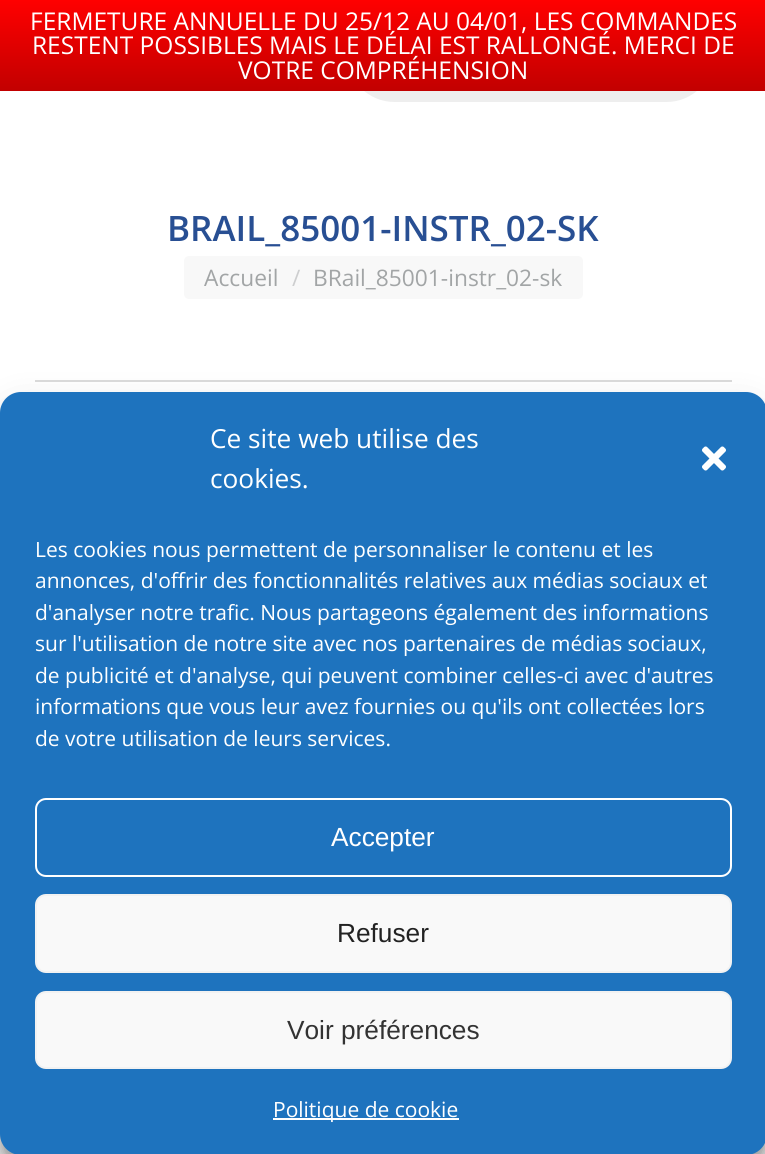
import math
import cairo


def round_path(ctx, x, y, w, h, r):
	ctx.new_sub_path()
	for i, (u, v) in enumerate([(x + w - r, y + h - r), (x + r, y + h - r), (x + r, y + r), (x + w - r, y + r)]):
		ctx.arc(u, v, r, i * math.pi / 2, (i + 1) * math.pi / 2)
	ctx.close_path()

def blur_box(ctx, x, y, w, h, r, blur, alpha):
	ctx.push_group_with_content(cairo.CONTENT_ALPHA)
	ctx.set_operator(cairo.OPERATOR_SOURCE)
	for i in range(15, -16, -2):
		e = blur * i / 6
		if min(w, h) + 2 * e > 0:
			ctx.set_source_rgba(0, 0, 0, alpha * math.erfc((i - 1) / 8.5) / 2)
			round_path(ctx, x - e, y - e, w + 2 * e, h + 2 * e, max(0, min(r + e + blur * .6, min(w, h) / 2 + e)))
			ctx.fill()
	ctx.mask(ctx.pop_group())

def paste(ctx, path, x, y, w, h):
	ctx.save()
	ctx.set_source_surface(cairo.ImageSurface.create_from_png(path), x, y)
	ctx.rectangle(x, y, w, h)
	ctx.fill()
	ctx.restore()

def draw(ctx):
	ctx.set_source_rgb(1, 1, 1)
	ctx.paint()
	ctx.set_source_rgb(0.933, 0.933, 0.933)
	round_path(ctx, 347, 7, 367, 95, 47.5)
	ctx.fill()
	gradient = cairo.LinearGradient(383, 0, 383, 91)
	gradient.add_color_stop_rgba(0, 1, 0, 0, 1)
	gradient.add_color_stop_rgba(1, 0.761, 0, 0, 1)
	ctx.set_source(gradient)
	ctx.rectangle(0, 0, 765, 91)
	ctx.fill()
	ctx.select_font_face('Open Sans')
	ctx.set_font_size(24.5)
	ctx.set_source_rgb(1, 1, 1)
	for x, y, s in [
		(30, 30, 'FERMETURE ANNUELLE DU 25/12 AU 04/01, LES COMMANDES'),
		(32, 54, 'RESTENT POSSIBLES MAIS LE DÉLAI EST RALLONGÉ. MERCI DE'),
		(238, 79, 'VOTRE COMPRÉHENSION'),
	]:
		ctx.move_to(x, y)
		ctx.show_text(s)
	ctx.select_font_face('Open Sans SemiBold')
	ctx.set_font_size(35)
	ctx.set_source_rgb(0.157, 0.31, 0.576)
	ctx.move_to(167, 241)
	ctx.show_text('BRAIL_85001-INSTR_02-SK')
	ctx.set_source_rgb(0.969, 0.969, 0.969)
	round_path(ctx, 184, 256, 399, 43, 5)
	ctx.fill()
	ctx.select_font_face('Open Sans')
	ctx.set_font_size(22.75)
	ctx.set_source_rgb(0.635, 0.647, 0.651)
	ctx.move_to(204, 286)
	ctx.show_text('Accueil')
	ctx.set_source_rgb(0.804, 0.808, 0.812)
	ctx.move_to(292, 286)
	ctx.show_text('/')
	ctx.set_source_rgb(0.635, 0.647, 0.651)
	ctx.move_to(313, 286)
	ctx.show_text('BRail_85001-instr_02-sk')
	ctx.set_source_rgb(0.859, 0.859, 0.859)
	ctx.rectangle(35, 380, 697, 2)
	ctx.fill()
	ctx.set_source_rgb(0.949, 0.953, 0.953)
	ctx.rectangle(0, 1134, 765, 20)
	ctx.fill()
	ctx.set_source_rgb(0, 0, 0)
	blur_box(ctx, 0, 403, 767, 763, 21, 5, 0.23)
	blur_box(ctx, 0, 410, 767, 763, 21, 17.5, 0.19)
	ctx.set_source_rgb(0.118, 0.451, 0.745)
	round_path(ctx, 0, 392, 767, 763, 21)
	ctx.fill()
	ctx.set_font_size(26.25)
	ctx.set_source_rgb(1, 1, 1)
	ctx.move_to(210, 448)
	ctx.show_text('Ce site web utilise des')
	ctx.move_to(210, 488)
	ctx.show_text('cookies.')
	paste(ctx, 'media/1.png', 702, 446, 24, 25)
	ctx.set_font_size(21)
	for x, y, s in [
		(35, 557, 'Les cookies nous permettent de personnaliser le contenu et les'),
		(35, 588, 'annonces, d\'offrir des fonctionnalités relatives aux médias sociaux et'),
		(35, 620, 'd\'analyser notre trafic. Nous partageons également des informations'),
		(35, 651, 'sur l\'utilisation de notre site avec nos partenaires de médias sociaux,'),
		(35, 683, 'de publicité et d\'analyse, qui peuvent combiner celles-ci avec d\'autres'),
		(35, 714, 'informations que vous leur avez fournies ou qu\'ils ont collectées lors'),
		(35, 746, 'de votre utilisation de leurs services.'),
	]:
		ctx.move_to(x, y)
		ctx.show_text(s)
	round_path(ctx, 36, 799, 695, 77, 10)
	ctx.stroke()
	ctx.select_font_face('Liberation Sans')
	ctx.set_font_size(26.25)
	ctx.move_to(331, 846)
	ctx.show_text('Accepter')
	ctx.set_source_rgb(0.976, 0.976, 0.976)
	round_path(ctx, 36, 895, 695, 77, 10)
	ctx.fill_preserve()
	ctx.set_source_rgb(0.949, 0.949, 0.949)
	ctx.stroke()
	ctx.set_source_rgb(0.133, 0.133, 0.133)
	ctx.move_to(337, 942)
	ctx.show_text('Refuser')
	ctx.set_source_rgb(0.976, 0.976, 0.976)
	round_path(ctx, 36, 992, 695, 76, 10)
	ctx.fill_preserve()
	ctx.set_source_rgb(0.949, 0.949, 0.949)
	ctx.stroke()
	ctx.set_source_rgb(0.2, 0.2, 0.2)
	ctx.move_to(287, 1039)
	ctx.show_text('Voir préférences')
	ctx.set_source_rgb(1, 1, 1)
	ctx.rectangle(273, 1118, 186, 2)
	ctx.fill()
	ctx.select_font_face('Open Sans')
	ctx.set_font_size(21)
	ctx.move_to(273, 1117)
	ctx.show_text('Politique de cookie')


surface = cairo.ImageSurface(cairo.FORMAT_RGB24, 765, 1154)
ctx = cairo.Context(surface)
options = cairo.FontOptions()
options.set_hint_metrics(cairo.HINT_METRICS_OFF)
options.set_hint_style(cairo.HINT_STYLE_NONE)
ctx.set_font_options(options)
ctx.set_miter_limit(4)
draw(ctx)
surface.write_to_png('image.png')
